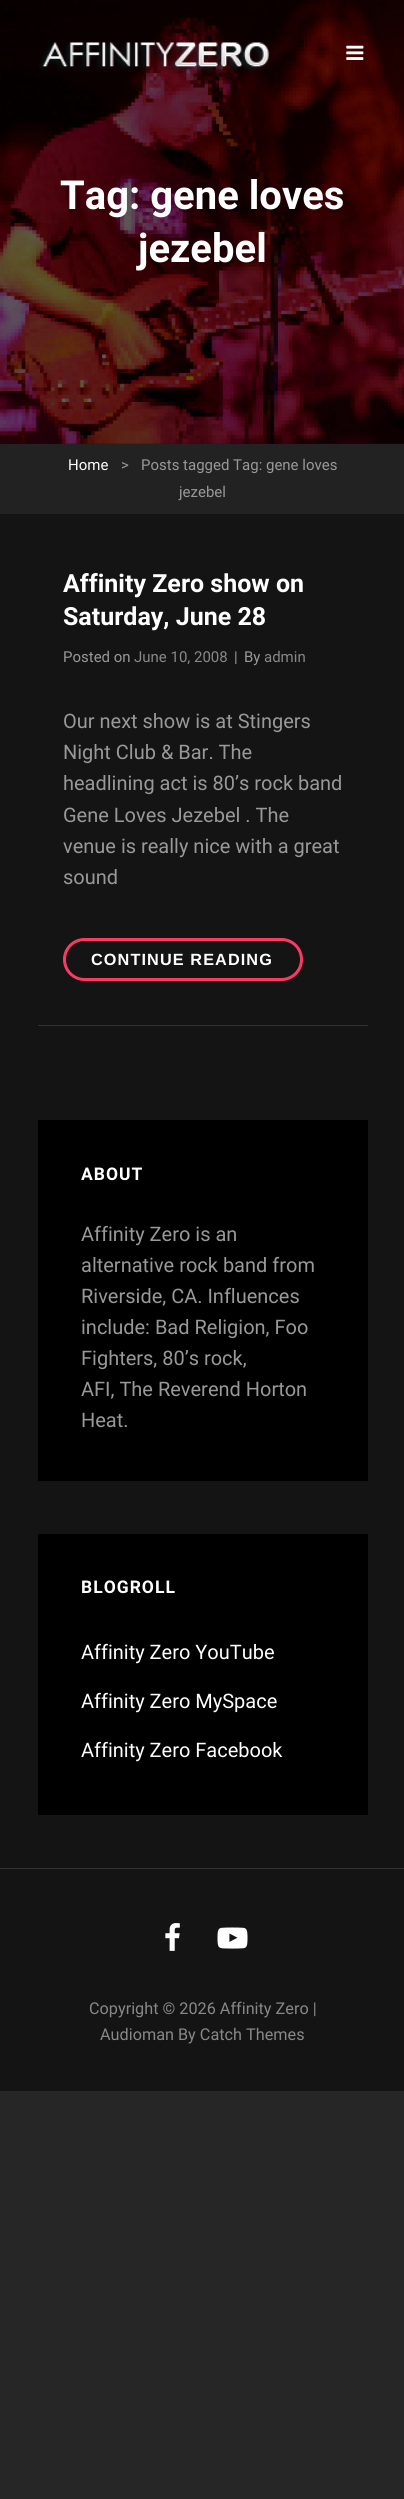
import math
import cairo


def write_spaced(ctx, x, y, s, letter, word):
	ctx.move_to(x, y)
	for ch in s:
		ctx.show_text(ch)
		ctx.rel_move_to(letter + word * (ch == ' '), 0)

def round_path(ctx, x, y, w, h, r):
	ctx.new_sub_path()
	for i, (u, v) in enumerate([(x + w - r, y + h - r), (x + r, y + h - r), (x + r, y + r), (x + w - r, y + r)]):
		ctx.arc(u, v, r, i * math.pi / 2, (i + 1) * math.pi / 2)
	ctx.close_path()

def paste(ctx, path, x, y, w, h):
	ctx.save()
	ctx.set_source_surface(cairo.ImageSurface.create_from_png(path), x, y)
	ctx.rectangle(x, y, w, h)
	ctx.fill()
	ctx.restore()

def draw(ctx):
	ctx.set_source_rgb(0.149, 0.149, 0.149)
	ctx.paint()
	ctx.set_source_rgb(0.082, 0.082, 0.082)
	ctx.rectangle(0, 443, 404, 1648)
	ctx.fill()
	paste(ctx, 'media/3.png', 0, 0, 404, 444)
	paste(ctx, 'media/4.png', 0, 19, 404, 424)
	paste(ctx, 'media/1.png', 39, 42, 230, 30)
	paste(ctx, 'media/2.png', 346, 45, 18, 15)
	ctx.select_font_face('Roboto', cairo.FONT_SLANT_NORMAL, cairo.FONT_WEIGHT_BOLD)
	ctx.set_font_size(40)
	ctx.set_source_rgb(1, 1, 1)
	ctx.move_to(60, 209)
	ctx.show_text('Tag: gene loves')
	ctx.move_to(138, 262)
	ctx.show_text('jezebel')
	ctx.set_source_rgb(0.133, 0.133, 0.133)
	ctx.rectangle(0, 444, 404, 70)
	ctx.fill()
	ctx.select_font_face('Roboto')
	ctx.set_font_size(15)
	ctx.set_source_rgb(1, 1, 1)
	ctx.move_to(68, 470)
	ctx.show_text('Home')
	ctx.set_source_rgb(0.6, 0.6, 0.6)
	for x, y, s in [
		(121, 470, '>'),
		(141, 470, 'Posts tagged Tag: gene loves'),
		(179, 497, 'jezebel'),
	]:
		ctx.move_to(x, y)
		ctx.show_text(s)
	ctx.set_source_rgb(0.2, 0.2, 0.2)
	ctx.rectangle(0, 1868, 404, 1)
	ctx.fill()
	ctx.rectangle(38, 1025, 330, 1)
	ctx.fill()
	ctx.select_font_face('Roboto', cairo.FONT_SLANT_NORMAL, cairo.FONT_WEIGHT_BOLD)
	ctx.set_font_size(25)
	ctx.set_source_rgb(1, 1, 1)
	ctx.move_to(63, 592)
	ctx.show_text('Affinity Zero show on')
	ctx.move_to(63, 625)
	ctx.show_text('Saturday, June 28')
	ctx.select_font_face('Roboto')
	ctx.set_font_size(15)
	ctx.set_source_rgb(0.6, 0.6, 0.6)
	ctx.move_to(63, 662)
	ctx.show_text('Posted on')
	ctx.set_source_rgb(0.533, 0.533, 0.533)
	ctx.move_to(134, 662)
	ctx.show_text('June 10, 2008')
	ctx.set_source_rgb(0.6, 0.6, 0.6)
	ctx.move_to(234, 662)
	ctx.show_text('|')
	ctx.move_to(244, 662)
	ctx.show_text('By')
	ctx.set_source_rgb(0.533, 0.533, 0.533)
	ctx.move_to(264, 662)
	ctx.show_text('admin')
	ctx.set_font_size(20)
	ctx.set_source_rgb(0.6, 0.6, 0.6)
	for x, y, s in [
		(63, 728, 'Our next show is at Stingers'),
		(63, 759, 'Night Club & Bar. The'),
		(63, 790, 'headlining act is 80’s rock band'),
		(63, 822, 'Gene Loves Jezebel . The'),
		(63, 853, 'venue is really nice with a great'),
		(63, 884, 'sound'),
	]:
		ctx.move_to(x, y)
		ctx.show_text(s)
	round_path(ctx, 64.5, 939.5, 237, 40, 20)
	ctx.set_source_rgb(0.984, 0.227, 0.392)
	ctx.set_line_width(3)
	ctx.stroke()
	ctx.select_font_face('Liberation Sans', cairo.FONT_SLANT_NORMAL, cairo.FONT_WEIGHT_BOLD)
	ctx.set_font_size(16.25)
	ctx.set_source_rgb(1, 1, 1)
	write_spaced(ctx, 91, 965, 'CONTINUE READING', 1.1, 0)
	ctx.set_source_rgb(0, 0, 0)
	ctx.rectangle(38, 1120, 330, 361)
	ctx.fill()
	ctx.select_font_face('Roboto', cairo.FONT_SLANT_NORMAL, cairo.FONT_WEIGHT_BOLD)
	ctx.set_font_size(17.5)
	ctx.set_source_rgb(1, 1, 1)
	write_spaced(ctx, 81, 1180, 'ABOUT', 1, 0)
	ctx.select_font_face('Roboto')
	ctx.set_font_size(20)
	ctx.set_source_rgb(0.6, 0.6, 0.6)
	for x, y, s in [
		(81, 1241, 'Affinity Zero is an'),
		(81, 1272, 'alternative rock band from'),
		(81, 1303, 'Riverside, CA. Influences'),
		(81, 1334, 'include: Bad Religion, Foo'),
		(81, 1365, 'Fighters, 80’s rock,'),
		(81, 1396, 'AFI, The Reverend Horton'),
		(81, 1427, 'Heat.'),
	]:
		ctx.move_to(x, y)
		ctx.show_text(s)
	ctx.set_source_rgb(0, 0, 0)
	ctx.rectangle(38, 1534, 330, 281)
	ctx.fill()
	ctx.select_font_face('Roboto', cairo.FONT_SLANT_NORMAL, cairo.FONT_WEIGHT_BOLD)
	ctx.set_font_size(17.5)
	ctx.set_source_rgb(1, 1, 1)
	write_spaced(ctx, 81, 1593, 'BLOGROLL', 1, 0)
	ctx.select_font_face('Roboto')
	ctx.set_font_size(20)
	for x, y, s in [
		(81, 1659, 'Affinity Zero YouTube'),
		(81, 1708, 'Affinity Zero MySpace'),
		(81, 1757, 'Affinity Zero Facebook'),
	]:
		ctx.move_to(x, y)
		ctx.show_text(s)
	paste(ctx, 'media/5.png', 165, 1923, 15, 28)
	paste(ctx, 'media/6.png', 217, 1927, 31, 22)
	ctx.set_font_size(16.25)
	ctx.set_source_rgb(0.533, 0.533, 0.533)
	ctx.move_to(89, 2014)
	ctx.show_text('Copyright © 2026 Affinity Zero |')
	ctx.move_to(100, 2040)
	ctx.show_text('Audioman By Catch Themes')


surface = cairo.ImageSurface(cairo.FORMAT_RGB24, 404, 2499)
ctx = cairo.Context(surface)
options = cairo.FontOptions()
options.set_hint_metrics(cairo.HINT_METRICS_OFF)
options.set_hint_style(cairo.HINT_STYLE_NONE)
ctx.set_font_options(options)
ctx.set_miter_limit(4)
draw(ctx)
surface.write_to_png('image.png')
